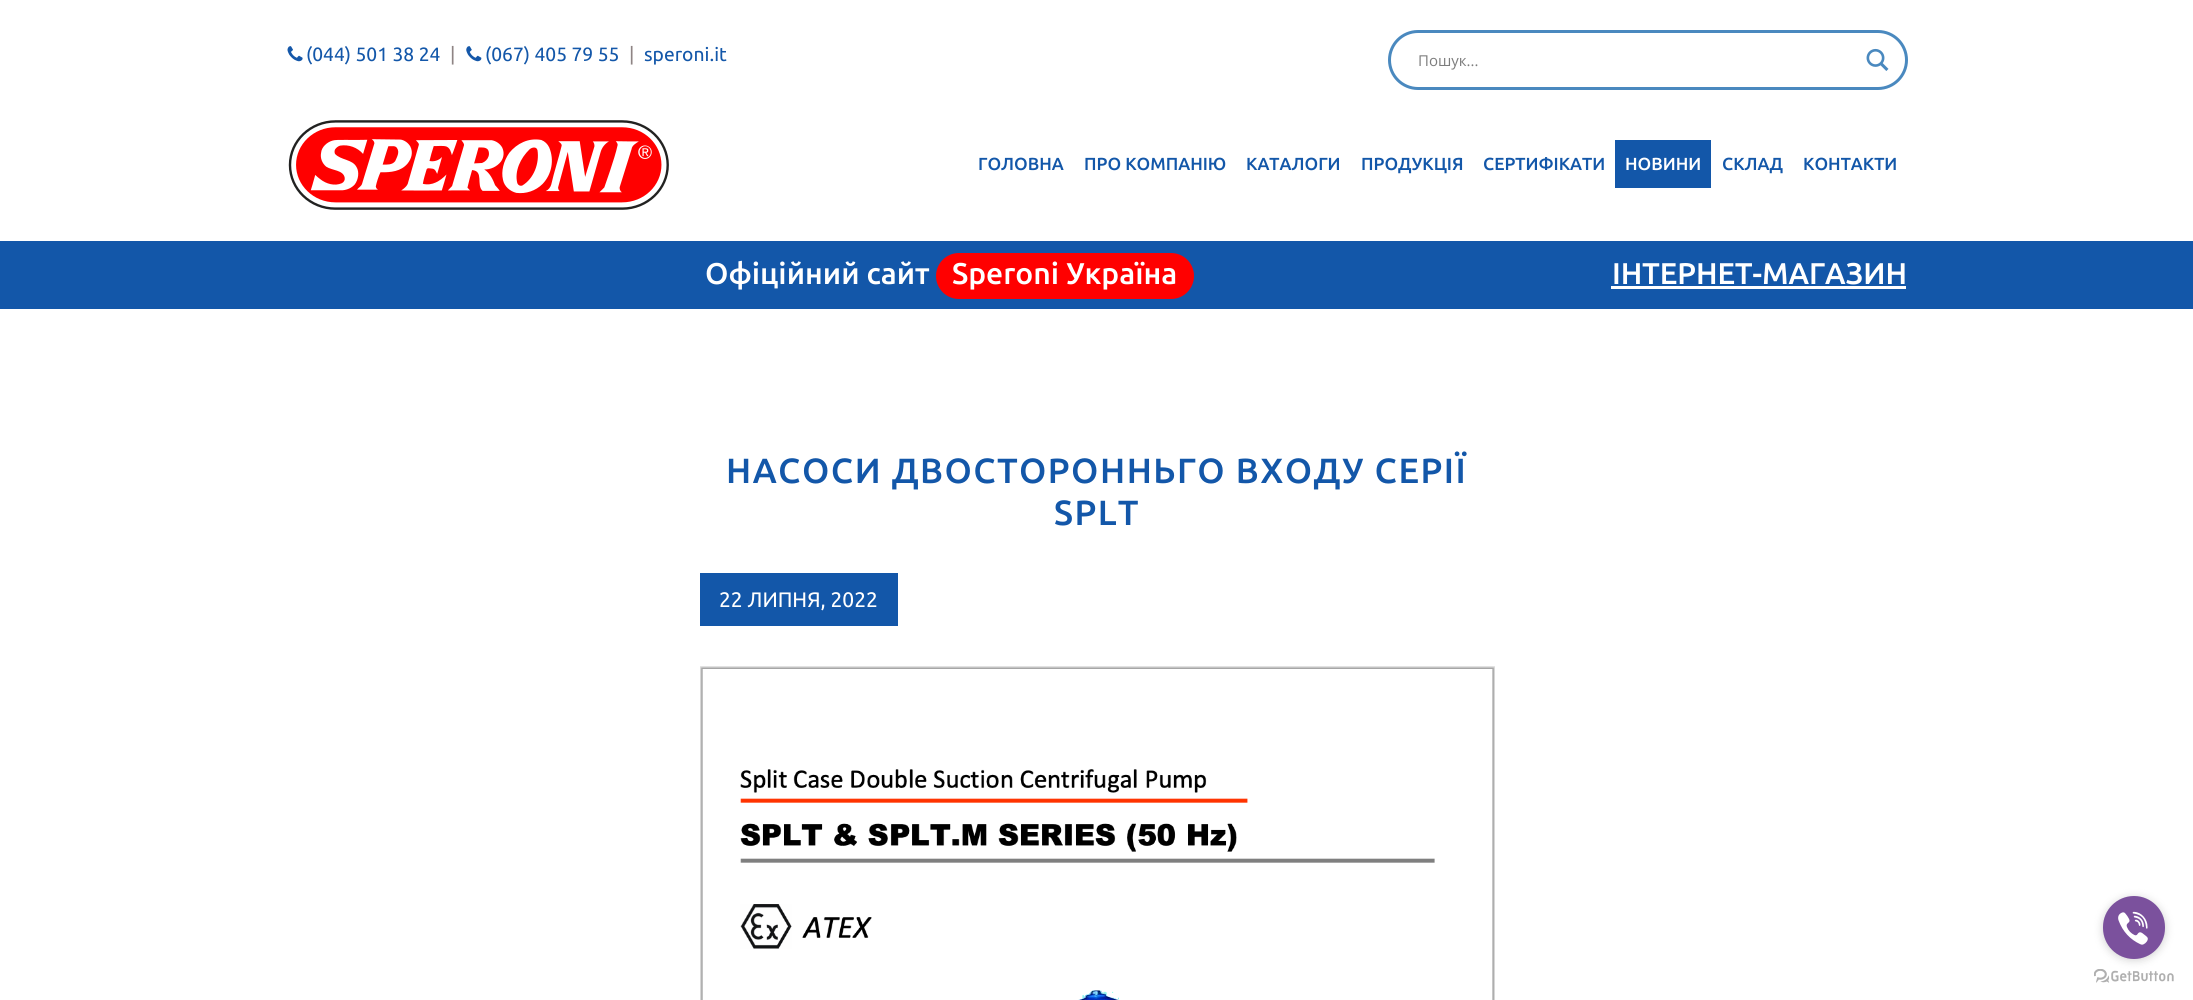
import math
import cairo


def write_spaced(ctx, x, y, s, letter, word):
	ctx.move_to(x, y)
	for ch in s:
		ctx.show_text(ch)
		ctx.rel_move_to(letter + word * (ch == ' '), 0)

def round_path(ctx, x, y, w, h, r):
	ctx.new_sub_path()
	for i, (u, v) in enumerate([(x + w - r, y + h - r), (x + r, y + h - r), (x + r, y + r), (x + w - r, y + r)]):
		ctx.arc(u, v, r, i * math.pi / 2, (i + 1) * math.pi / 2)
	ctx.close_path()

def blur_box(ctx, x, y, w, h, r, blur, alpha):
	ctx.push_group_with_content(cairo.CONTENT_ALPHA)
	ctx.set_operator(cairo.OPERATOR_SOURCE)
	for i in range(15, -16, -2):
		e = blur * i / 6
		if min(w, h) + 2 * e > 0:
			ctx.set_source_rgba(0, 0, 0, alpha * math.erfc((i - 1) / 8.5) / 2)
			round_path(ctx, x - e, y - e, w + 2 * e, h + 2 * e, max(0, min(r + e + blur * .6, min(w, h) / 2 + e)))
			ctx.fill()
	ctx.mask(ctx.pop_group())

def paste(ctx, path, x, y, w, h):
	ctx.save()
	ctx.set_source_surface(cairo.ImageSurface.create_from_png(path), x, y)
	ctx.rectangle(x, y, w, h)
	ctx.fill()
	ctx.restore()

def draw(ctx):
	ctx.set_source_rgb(1, 1, 1)
	ctx.paint()
	paste(ctx, 'media/1.png', 287, 46, 16, 16)
	ctx.select_font_face('Ubuntu')
	ctx.set_font_size(19.25)
	ctx.set_source_rgb(0.078, 0.341, 0.663)
	ctx.move_to(306, 61)
	ctx.show_text('(044) 501 38 24')
	ctx.set_source_rgb(0.557, 0.518, 0.518)
	ctx.move_to(450, 61)
	ctx.show_text('|')
	paste(ctx, 'media/2.png', 466, 46, 16, 16)
	ctx.set_source_rgb(0.078, 0.341, 0.663)
	ctx.move_to(485, 61)
	ctx.show_text('(067) 405 79 55')
	ctx.set_source_rgb(0.557, 0.518, 0.518)
	ctx.move_to(629, 61)
	ctx.show_text('|')
	ctx.set_source_rgb(0.078, 0.341, 0.663)
	ctx.move_to(644, 61)
	ctx.show_text('speroni.it')
	round_path(ctx, 1389.5, 31.5, 517, 57, 28.5)
	ctx.set_source_rgb(0.29, 0.537, 0.749)
	ctx.set_line_width(3)
	ctx.stroke()
	ctx.select_font_face('Open Sans')
	ctx.set_font_size(15)
	ctx.set_source_rgb(0.49, 0.49, 0.49)
	ctx.move_to(1418, 66)
	ctx.show_text('Пошук...')
	paste(ctx, 'media/3.png', 1866, 48, 23, 23)
	paste(ctx, 'media/4.png', 288, 120, 381, 90)
	ctx.select_font_face('Ubuntu Medium')
	ctx.set_font_size(17.5)
	ctx.set_source_rgb(0.078, 0.341, 0.663)
	for x, y, s in [
		(978, 170, 'ГОЛОВНА'),
		(1084, 170, 'ПРО КОМПАНІЮ'),
		(1246, 170, 'КАТАЛОГИ'),
		(1361, 170, 'ПРОДУКЦІЯ'),
		(1483, 170, 'СЕРТИФІКАТИ'),
	]:
		ctx.move_to(x, y)
		ctx.show_text(s)
	ctx.rectangle(1615, 140, 96, 48)
	ctx.fill()
	ctx.set_source_rgb(1, 1, 1)
	ctx.move_to(1625, 170)
	ctx.show_text('НОВИНИ')
	ctx.set_source_rgb(0.078, 0.341, 0.663)
	ctx.move_to(1722, 170)
	ctx.show_text('CКЛАД')
	ctx.move_to(1803, 170)
	ctx.show_text('КОНТАКТИ')
	ctx.rectangle(0, 241, 2193, 68)
	ctx.fill()
	ctx.set_font_size(30)
	ctx.set_source_rgb(1, 1, 1)
	ctx.move_to(705, 284)
	ctx.show_text('Офіційний сайт')
	ctx.set_source_rgb(1, 0, 0)
	round_path(ctx, 936, 253, 258, 46, 23)
	ctx.fill()
	ctx.set_source_rgb(1, 1, 1)
	ctx.move_to(952, 284)
	ctx.show_text('Speroni Україна')
	ctx.move_to(1612, 284)
	ctx.show_text('ІНТЕРНЕТ-МАГАЗИН')
	ctx.rectangle(1611, 286, 295, 3)
	ctx.fill()
	ctx.set_font_size(35)
	ctx.set_source_rgb(0.078, 0.341, 0.663)
	write_spaced(ctx, 726, 483, 'НАСОСИ ДВОСТОРОННЬГО ВХОДУ СЕРІЇ', 1.5, 0)
	write_spaced(ctx, 1054, 525, 'SPLT', 1.5, 0)
	ctx.rectangle(700, 573, 198, 53)
	ctx.fill()
	ctx.select_font_face('Ubuntu')
	ctx.set_font_size(21)
	ctx.set_source_rgb(1, 1, 1)
	ctx.move_to(719, 607)
	ctx.show_text('22 ЛИПНЯ, 2022')
	paste(ctx, 'media/5.png', 700, 666, 795, 334)
	paste(ctx, 'media/7.png', 2094, 969, 80, 14)
	ctx.set_source_rgb(0.533, 0.533, 0.533)
	blur_box(ctx, 2103, 898, 62, 62, 31, 4.5, 0.4)
	ctx.set_source_rgb(0.482, 0.318, 0.616)
	round_path(ctx, 2103, 896, 62, 63, 31)
	ctx.fill()
	paste(ctx, 'media/6.png', 2118, 911, 30, 34)


surface = cairo.ImageSurface(cairo.FORMAT_RGB24, 2193, 1000)
ctx = cairo.Context(surface)
options = cairo.FontOptions()
options.set_hint_metrics(cairo.HINT_METRICS_OFF)
options.set_hint_style(cairo.HINT_STYLE_NONE)
ctx.set_font_options(options)
ctx.set_miter_limit(4)
draw(ctx)
surface.write_to_png('image.png')
